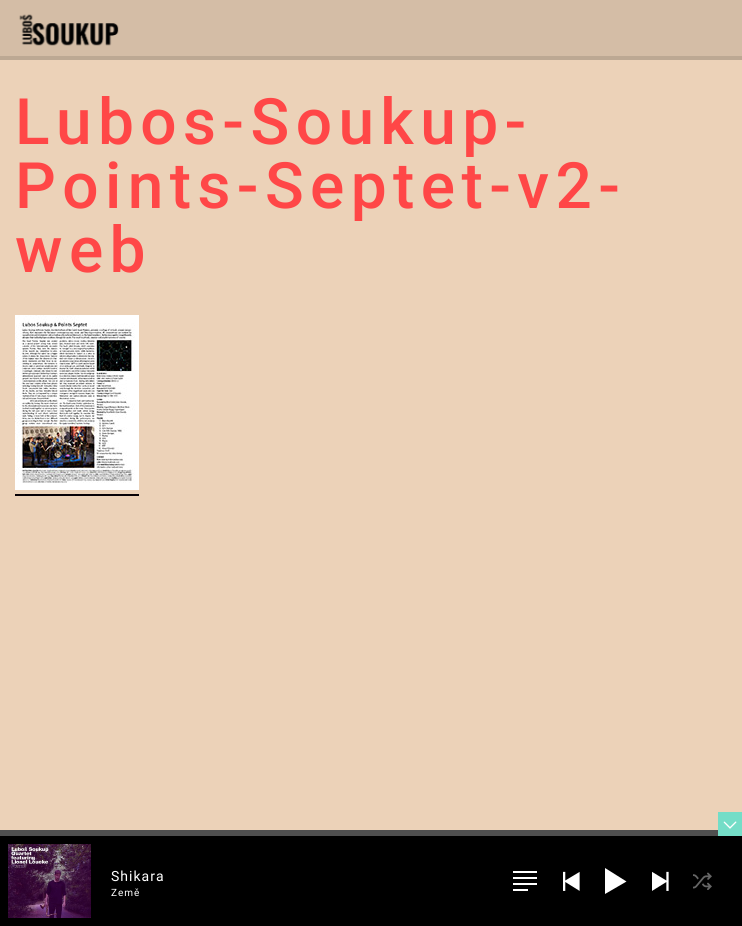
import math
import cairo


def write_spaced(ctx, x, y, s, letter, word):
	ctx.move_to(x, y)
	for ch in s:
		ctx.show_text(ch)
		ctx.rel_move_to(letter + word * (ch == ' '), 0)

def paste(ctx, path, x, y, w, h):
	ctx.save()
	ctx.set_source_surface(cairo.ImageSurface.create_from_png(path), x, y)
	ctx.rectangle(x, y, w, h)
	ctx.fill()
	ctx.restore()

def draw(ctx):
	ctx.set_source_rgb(0.922, 0.824, 0.722)
	ctx.paint()
	ctx.set_source_rgb(0.831, 0.741, 0.651)
	ctx.rectangle(0, 0, 742, 56)
	ctx.fill()
	ctx.set_source_rgb(0.737, 0.659, 0.576)
	ctx.rectangle(0, 56, 742, 4)
	ctx.fill()
	paste(ctx, 'media/1.png', 19, 14, 100, 32)
	ctx.select_font_face('Roboto Medium')
	ctx.set_font_size(64)
	ctx.set_source_rgb(1, 0.278, 0.278)
	for x, y, s in [
		(15, 144, 'Lubos-Soukup-'),
		(15, 208, 'Points-Septet-v2-'),
		(15, 272, 'web'),
	]:
		write_spaced(ctx, x, y, s, 6.4, 0)
	paste(ctx, 'media/2.png', 15, 315, 124, 175)
	ctx.set_source_rgb(0.035, 0.008, 0.027)
	ctx.rectangle(15, 494, 124, 2)
	ctx.fill()
	ctx.set_source_rgb(0, 0, 0)
	ctx.rectangle(0, 836, 742, 90)
	ctx.fill()
	ctx.set_source_rgb(0.31, 0.31, 0.31)
	ctx.rectangle(0, 830, 718, 6)
	ctx.fill()
	ctx.set_source_rgb(0.455, 0.867, 0.78)
	ctx.rectangle(718, 812, 24, 24)
	ctx.fill()
	paste(ctx, 'media/3.png', 723, 821, 14, 8)
	paste(ctx, 'media/4.png', 8, 844, 83, 74)
	ctx.select_font_face('Roboto')
	ctx.set_font_size(14)
	ctx.set_source_rgb(1, 1, 1)
	write_spaced(ctx, 111, 881, 'Shikara', 1, 0)
	ctx.set_font_size(10)
	write_spaced(ctx, 111, 896, 'Země', 1, 0)
	paste(ctx, 'media/5.png', 513, 871, 24, 20)
	paste(ctx, 'media/6.png', 563, 871, 17, 20)
	ctx.new_path()
	ctx.move_to(605, 868)
	ctx.line_to(626.5, 881.5)
	ctx.line_to(605, 894)
	ctx.close_path()
	ctx.fill()
	paste(ctx, 'media/7.png', 652, 871, 17, 20)
	paste(ctx, 'media/8.png', 693, 872, 19, 18)


surface = cairo.ImageSurface(cairo.FORMAT_RGB24, 742, 926)
ctx = cairo.Context(surface)
options = cairo.FontOptions()
options.set_hint_metrics(cairo.HINT_METRICS_OFF)
options.set_hint_style(cairo.HINT_STYLE_NONE)
ctx.set_font_options(options)
ctx.set_miter_limit(4)
draw(ctx)
surface.write_to_png('image.png')
